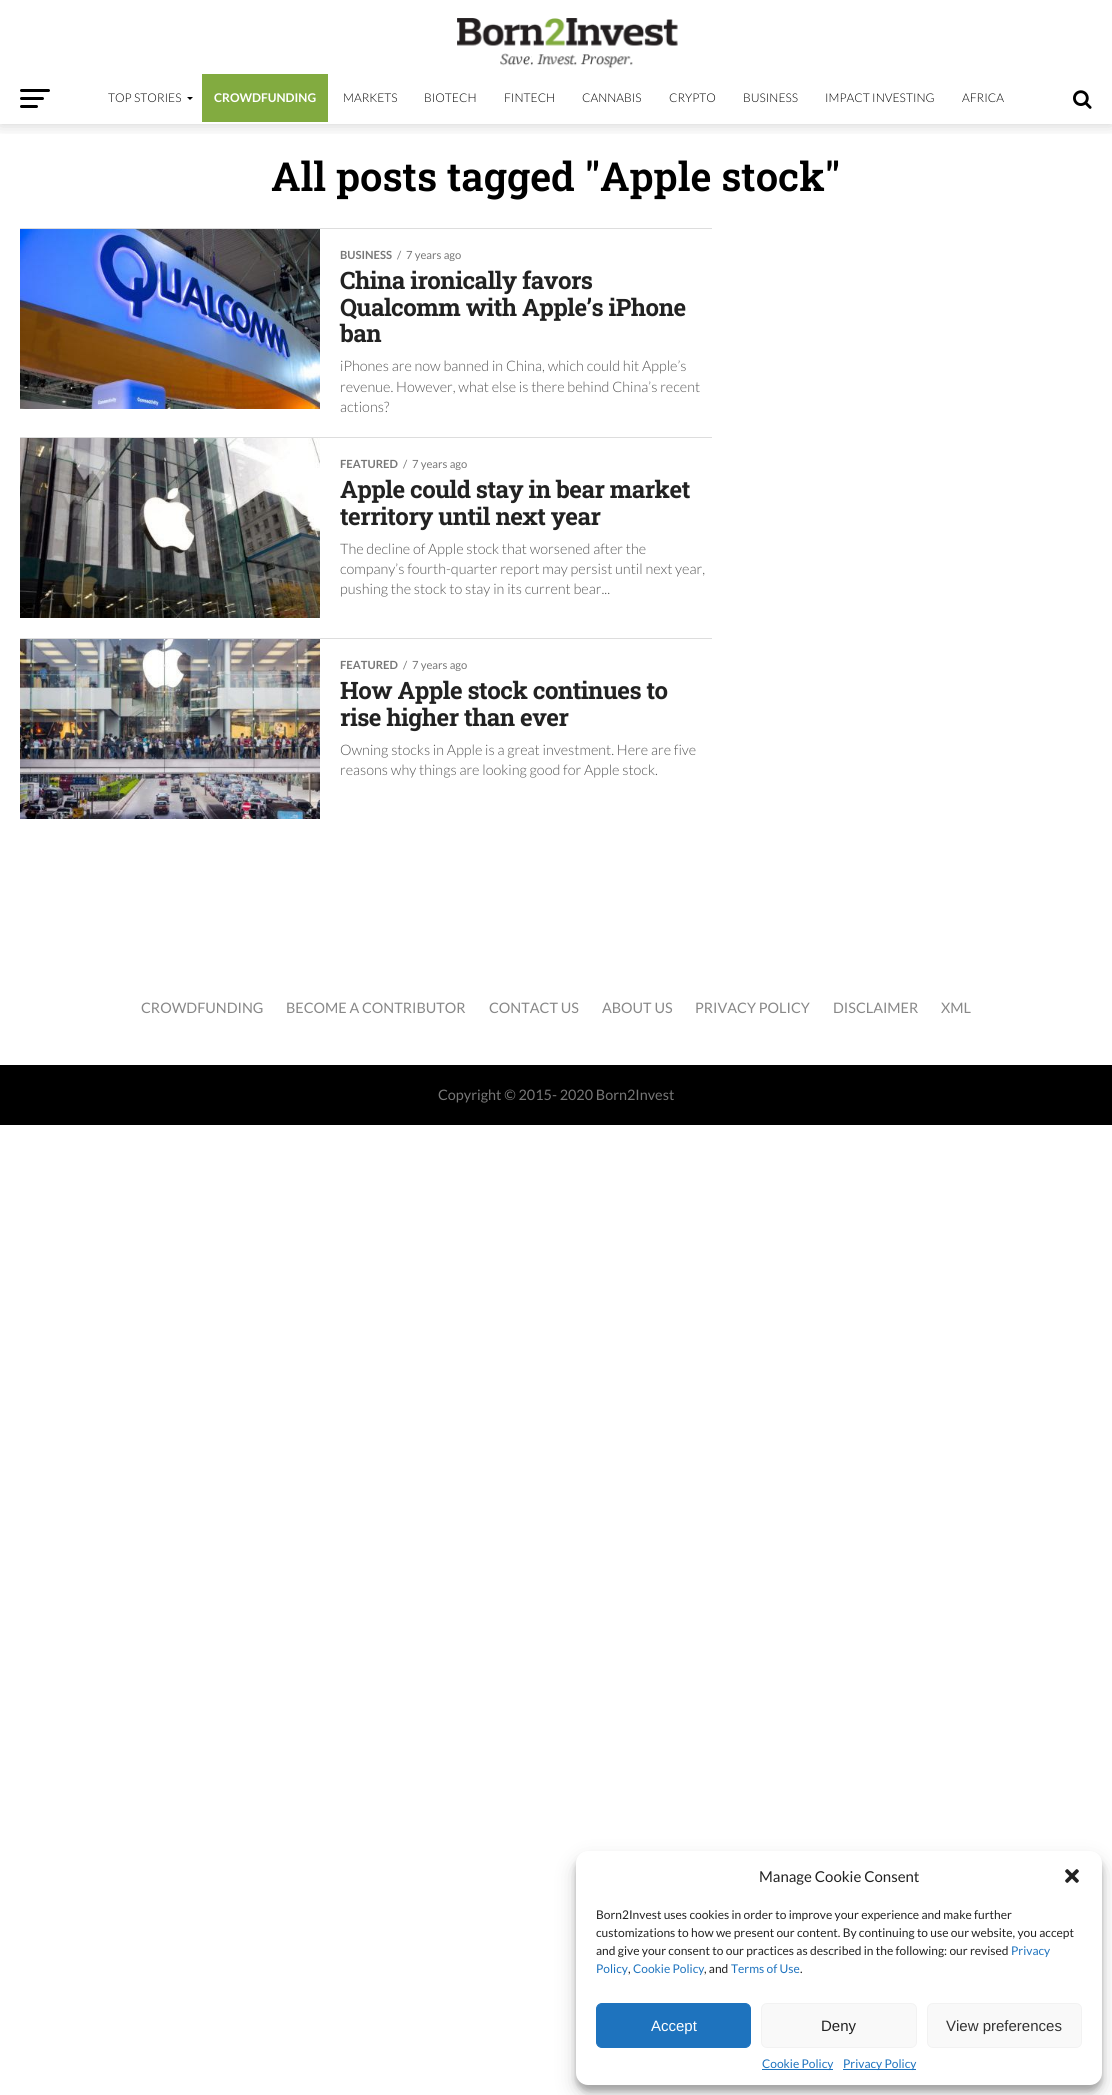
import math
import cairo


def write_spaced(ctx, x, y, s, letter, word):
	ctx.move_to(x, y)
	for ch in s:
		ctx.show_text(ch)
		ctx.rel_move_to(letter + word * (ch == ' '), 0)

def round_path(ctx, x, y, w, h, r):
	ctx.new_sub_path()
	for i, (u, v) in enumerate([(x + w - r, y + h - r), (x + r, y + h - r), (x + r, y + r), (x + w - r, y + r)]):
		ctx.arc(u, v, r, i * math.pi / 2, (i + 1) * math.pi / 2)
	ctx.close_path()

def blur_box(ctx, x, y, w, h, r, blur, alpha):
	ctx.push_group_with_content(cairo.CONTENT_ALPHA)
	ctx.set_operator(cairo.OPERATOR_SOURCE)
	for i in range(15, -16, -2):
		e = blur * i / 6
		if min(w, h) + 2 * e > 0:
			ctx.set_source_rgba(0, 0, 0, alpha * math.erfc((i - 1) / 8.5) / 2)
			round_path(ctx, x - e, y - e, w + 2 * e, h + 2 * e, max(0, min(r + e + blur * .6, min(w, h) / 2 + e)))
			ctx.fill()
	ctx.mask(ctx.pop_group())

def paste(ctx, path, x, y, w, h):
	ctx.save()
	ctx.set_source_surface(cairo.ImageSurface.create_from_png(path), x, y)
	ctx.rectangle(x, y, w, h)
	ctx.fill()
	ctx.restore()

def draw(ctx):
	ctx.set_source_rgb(1, 1, 1)
	ctx.paint()
	ctx.save()
	ctx.rectangle(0, 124, 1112, 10)
	ctx.clip()
	ctx.set_source_rgb(0, 0, 0)
	blur_box(ctx, 0, 74, 1112, 50, 0, 8, 0.2)
	ctx.restore()
	ctx.set_source_rgb(1, 1, 1)
	ctx.rectangle(0, 61, 1112, 13)
	ctx.fill()
	paste(ctx, 'media/1.png', 457, 18, 221, 51)
	ctx.set_source_rgb(0, 0, 0)
	round_path(ctx, 20, 89, 30, 3, 1.5)
	ctx.fill()
	round_path(ctx, 20, 97, 24, 3, 1.5)
	ctx.fill()
	round_path(ctx, 20, 105, 18, 3, 1.5)
	ctx.fill()
	ctx.select_font_face('Lato Light')
	ctx.set_font_size(12)
	ctx.move_to(108, 102)
	ctx.show_text('TOP STORIES')
	ctx.new_path()
	ctx.move_to(187, 97)
	ctx.line_to(193, 97)
	ctx.line_to(190, 100)
	ctx.close_path()
	ctx.fill()
	ctx.set_source_rgb(0.51, 0.671, 0.251)
	ctx.rectangle(202, 74, 126, 48)
	ctx.fill()
	ctx.select_font_face('Lato', cairo.FONT_SLANT_NORMAL, cairo.FONT_WEIGHT_BOLD)
	ctx.set_source_rgb(1, 1, 1)
	ctx.move_to(214, 102)
	ctx.show_text('CROWDFUNDING')
	ctx.select_font_face('Lato Light')
	ctx.set_source_rgb(0, 0, 0)
	for x, y, s in [
		(343, 102, 'MARKETS'),
		(424, 102, 'BIOTECH'),
		(504, 102, 'FINTECH'),
		(582, 102, 'CANNABIS'),
		(669, 102, 'CRYPTO'),
		(743, 102, 'BUSINESS'),
		(825, 102, 'IMPACT INVESTING'),
		(962, 102, 'AFRICA'),
	]:
		ctx.move_to(x, y)
		ctx.show_text(s)
	paste(ctx, 'media/2.png', 1073, 90, 19, 19)
	ctx.select_font_face('Roboto Slab SemiBold')
	ctx.set_font_size(40)
	ctx.move_to(271, 191)
	ctx.show_text('All posts tagged "Apple stock"')
	ctx.set_source_rgb(0.867, 0.867, 0.867)
	ctx.rectangle(20, 228, 692, 1)
	ctx.fill()
	paste(ctx, 'media/3.png', 20, 229, 300, 180)
	ctx.select_font_face('Lato', cairo.FONT_SLANT_NORMAL, cairo.FONT_WEIGHT_BOLD)
	ctx.set_font_size(11.25)
	ctx.set_source_rgb(0.467, 0.467, 0.467)
	ctx.move_to(340, 259)
	ctx.show_text('BUSINESS')
	ctx.select_font_face('Lato')
	ctx.move_to(397, 259)
	ctx.show_text('/')
	ctx.move_to(406, 259)
	ctx.show_text('7 years ago')
	ctx.select_font_face('Roboto Slab', cairo.FONT_SLANT_NORMAL, cairo.FONT_WEIGHT_BOLD)
	ctx.set_font_size(24)
	ctx.set_source_rgb(0.133, 0.133, 0.133)
	for x, y, s in [
		(340, 289, 'China ironically favors'),
		(340, 316, 'Qualcomm with Apple’s iPhone'),
		(340, 342, 'ban'),
	]:
		write_spaced(ctx, x, y, s, -0.5, 0)
	ctx.select_font_face('Lato Light')
	ctx.set_font_size(14.4)
	ctx.set_source_rgb(0.333, 0.333, 0.333)
	for x, y, s in [
		(340, 371, 'iPhones are now banned in China, which could hit Apple’s'),
		(340, 392, 'revenue. However, what else is there behind China’s recent'),
		(340, 412, 'actions?'),
	]:
		ctx.move_to(x, y)
		ctx.show_text(s)
	ctx.set_source_rgb(0.867, 0.867, 0.867)
	ctx.rectangle(20, 437, 692, 1)
	ctx.fill()
	paste(ctx, 'media/4.png', 20, 438, 300, 180)
	ctx.select_font_face('Lato', cairo.FONT_SLANT_NORMAL, cairo.FONT_WEIGHT_BOLD)
	ctx.set_font_size(11.25)
	ctx.set_source_rgb(0.467, 0.467, 0.467)
	ctx.move_to(340, 468)
	ctx.show_text('FEATURED')
	ctx.select_font_face('Lato')
	ctx.move_to(403, 468)
	ctx.show_text('/')
	ctx.move_to(412, 468)
	ctx.show_text('7 years ago')
	ctx.select_font_face('Roboto Slab', cairo.FONT_SLANT_NORMAL, cairo.FONT_WEIGHT_BOLD)
	ctx.set_font_size(24)
	ctx.set_source_rgb(0.133, 0.133, 0.133)
	write_spaced(ctx, 340, 498, 'Apple could stay in bear market', -0.5, 0)
	write_spaced(ctx, 340, 525, 'territory until next year', -0.5, 0)
	ctx.select_font_face('Lato Light')
	ctx.set_font_size(14.4)
	ctx.set_source_rgb(0.333, 0.333, 0.333)
	for x, y, s in [
		(340, 554, 'The decline of Apple stock that worsened after the'),
		(340, 574, 'company’s fourth-quarter report may persist until next year,'),
		(340, 594, 'pushing the stock to stay in its current bear...'),
	]:
		ctx.move_to(x, y)
		ctx.show_text(s)
	ctx.set_source_rgb(0.867, 0.867, 0.867)
	ctx.rectangle(20, 638, 692, 1)
	ctx.fill()
	paste(ctx, 'media/5.png', 20, 639, 300, 180)
	ctx.select_font_face('Lato', cairo.FONT_SLANT_NORMAL, cairo.FONT_WEIGHT_BOLD)
	ctx.set_font_size(11.25)
	ctx.set_source_rgb(0.467, 0.467, 0.467)
	ctx.move_to(340, 669)
	ctx.show_text('FEATURED')
	ctx.select_font_face('Lato')
	ctx.move_to(403, 669)
	ctx.show_text('/')
	ctx.move_to(412, 669)
	ctx.show_text('7 years ago')
	ctx.select_font_face('Roboto Slab', cairo.FONT_SLANT_NORMAL, cairo.FONT_WEIGHT_BOLD)
	ctx.set_font_size(24)
	ctx.set_source_rgb(0.133, 0.133, 0.133)
	write_spaced(ctx, 340, 699, 'How Apple stock continues to', -0.5, 0)
	write_spaced(ctx, 340, 726, 'rise higher than ever', -0.5, 0)
	ctx.select_font_face('Lato Light')
	ctx.set_font_size(14.4)
	ctx.set_source_rgb(0.333, 0.333, 0.333)
	ctx.move_to(340, 755)
	ctx.show_text('Owning stocks in Apple is a great investment. Here are five')
	ctx.move_to(340, 775)
	ctx.show_text('reasons why things are looking good for Apple stock.')
	ctx.select_font_face('Lato')
	ctx.set_source_rgb(0.533, 0.533, 0.533)
	for x, y, s in [
		(141, 1013, 'CROWDFUNDING'),
		(286, 1013, 'BECOME A CONTRIBUTOR'),
		(489, 1013, 'CONTACT US'),
		(602, 1013, 'ABOUT US'),
		(695, 1013, 'PRIVACY POLICY'),
		(833, 1013, 'DISCLAIMER'),
		(941, 1013, 'XML'),
	]:
		ctx.move_to(x, y)
		ctx.show_text(s)
	ctx.set_source_rgb(0, 0, 0)
	ctx.rectangle(0, 1065, 1112, 60)
	ctx.fill()
	ctx.set_source_rgb(0.467, 0.467, 0.467)
	ctx.move_to(438, 1100)
	ctx.show_text('Copyright © 2015- 2020 Born2Invest')
	ctx.set_source_rgb(0, 0, 0)
	blur_box(ctx, 576, 1857, 526, 234, 12, 3, 0.23)
	blur_box(ctx, 576, 1861, 526, 234, 12, 10, 0.19)
	ctx.set_source_rgb(1, 1, 1)
	round_path(ctx, 576, 1851, 526, 234, 12)
	ctx.fill()
	ctx.set_font_size(15)
	ctx.set_source_rgb(0.133, 0.133, 0.133)
	ctx.move_to(759, 1882)
	ctx.show_text('Manage Cookie Consent')
	paste(ctx, 'media/6.png', 1065, 1869, 14, 14)
	ctx.set_font_size(12)
	for x, y, s in [
		(596, 1919, 'Born2Invest uses cookies in order to improve your experience and make further'),
		(596, 1937, 'customizations to how we present our content. By continuing to use our website, you accept'),
		(596, 1955, 'and give your consent to our practices as described in the following: our revised'),
	]:
		ctx.move_to(x, y)
		ctx.show_text(s)
	ctx.set_source_rgb(0.118, 0.451, 0.745)
	ctx.move_to(1011, 1955)
	ctx.show_text('Privacy')
	ctx.move_to(596, 1973)
	ctx.show_text('Policy')
	ctx.set_source_rgb(0.133, 0.133, 0.133)
	ctx.move_to(628, 1973)
	ctx.show_text(',')
	ctx.set_source_rgb(0.118, 0.451, 0.745)
	ctx.move_to(633, 1973)
	ctx.show_text('Cookie Policy')
	ctx.set_source_rgb(0.133, 0.133, 0.133)
	ctx.move_to(704, 1973)
	ctx.show_text(', and')
	ctx.set_source_rgb(0.118, 0.451, 0.745)
	ctx.move_to(731, 1973)
	ctx.show_text('Terms of Use')
	ctx.set_source_rgb(0.133, 0.133, 0.133)
	ctx.move_to(800, 1973)
	ctx.show_text('.')
	ctx.set_source_rgb(0.118, 0.451, 0.745)
	round_path(ctx, 596.5, 2003.5, 154, 44, 5.5)
	ctx.fill_preserve()
	ctx.set_line_width(1)
	ctx.stroke()
	ctx.select_font_face('Liberation Sans')
	ctx.set_font_size(15)
	ctx.set_source_rgb(1, 1, 1)
	ctx.move_to(651, 2031)
	ctx.show_text('Accept')
	ctx.set_source_rgb(0.976, 0.976, 0.976)
	round_path(ctx, 761.5, 2003.5, 155, 44, 5.5)
	ctx.fill_preserve()
	ctx.set_source_rgb(0.949, 0.949, 0.949)
	ctx.stroke()
	ctx.set_source_rgb(0.133, 0.133, 0.133)
	ctx.move_to(821, 2031)
	ctx.show_text('Deny')
	ctx.set_source_rgb(0.976, 0.976, 0.976)
	round_path(ctx, 927.5, 2003.5, 154, 44, 5.5)
	ctx.fill_preserve()
	ctx.set_source_rgb(0.949, 0.949, 0.949)
	ctx.stroke()
	ctx.set_source_rgb(0.2, 0.2, 0.2)
	ctx.move_to(946, 2031)
	ctx.show_text('View preferences')
	ctx.set_source_rgb(0.118, 0.451, 0.745)
	ctx.rectangle(762, 2069, 71, 1)
	ctx.fill()
	ctx.select_font_face('Lato')
	ctx.set_font_size(12)
	ctx.move_to(762, 2068)
	ctx.show_text('Cookie Policy')
	ctx.rectangle(843, 2069, 73, 1)
	ctx.fill()
	ctx.move_to(843, 2068)
	ctx.show_text('Privacy Policy')


surface = cairo.ImageSurface(cairo.FORMAT_RGB24, 1112, 2095)
ctx = cairo.Context(surface)
options = cairo.FontOptions()
options.set_hint_metrics(cairo.HINT_METRICS_OFF)
options.set_hint_style(cairo.HINT_STYLE_NONE)
ctx.set_font_options(options)
ctx.set_miter_limit(4)
draw(ctx)
surface.write_to_png('image.png')
